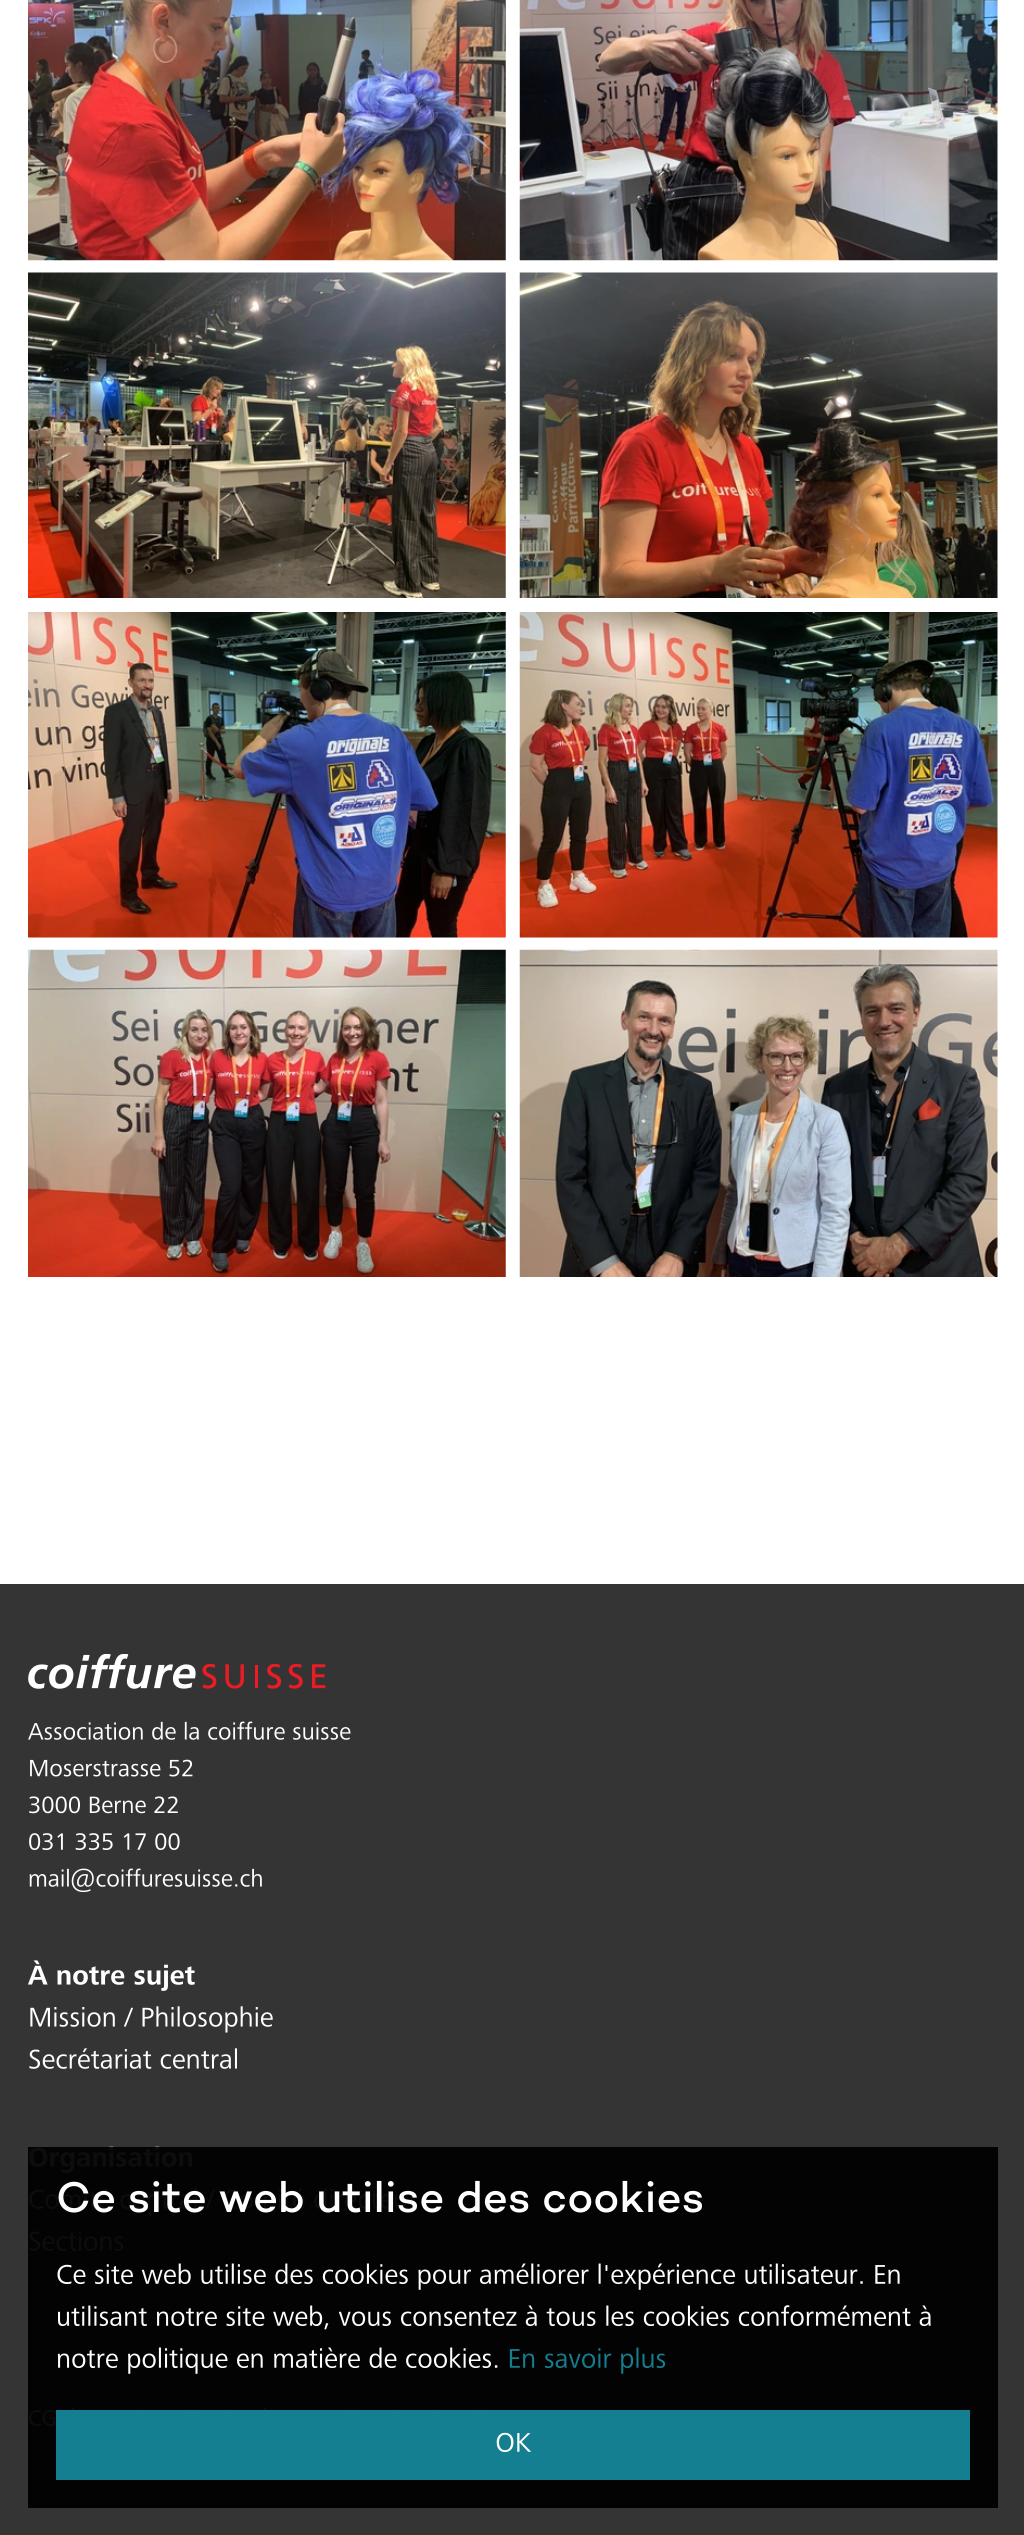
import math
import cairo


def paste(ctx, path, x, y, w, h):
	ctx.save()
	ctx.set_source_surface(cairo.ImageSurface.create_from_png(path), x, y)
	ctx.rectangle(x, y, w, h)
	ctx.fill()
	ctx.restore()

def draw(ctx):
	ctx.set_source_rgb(1, 1, 1)
	ctx.paint()
	paste(ctx, 'media/1.png', 28, 0, 478, 261)
	paste(ctx, 'media/2.png', 519, 0, 479, 261)
	paste(ctx, 'media/3.png', 28, 272, 478, 326)
	paste(ctx, 'media/4.png', 519, 272, 479, 326)
	paste(ctx, 'media/5.png', 28, 612, 478, 326)
	paste(ctx, 'media/6.png', 519, 612, 479, 326)
	paste(ctx, 'media/7.png', 28, 949, 478, 328)
	paste(ctx, 'media/8.png', 519, 949, 479, 328)
	ctx.set_source_rgb(0.204, 0.204, 0.204)
	ctx.rectangle(0, 1584, 1024, 951)
	ctx.fill()
	ctx.set_source_rgb(0.012, 0.012, 0.012)
	ctx.rectangle(28, 2147, 970, 361)
	ctx.fill()
	paste(ctx, 'media/9.png', 28, 1654, 298, 35)
	paste(ctx, 'media/10.png', 28, 1721, 323, 19)
	paste(ctx, 'media/11.png', 30, 1759, 163, 18)
	paste(ctx, 'media/12.png', 29, 1796, 149, 18)
	paste(ctx, 'media/13.png', 29, 1833, 151, 17)
	paste(ctx, 'media/14.png', 29, 1868, 40, 19)
	paste(ctx, 'media/15.png', 71, 1868, 191, 25)
	paste(ctx, 'media/16.png', 28, 1960, 167, 31)
	paste(ctx, 'media/17.png', 30, 2006, 243, 27)
	paste(ctx, 'media/18.png', 29, 2048, 208, 21)
	paste(ctx, 'media/19.png', 29, 2146, 164, 27)
	paste(ctx, 'media/20.png', 29, 2188, 388, 21)
	paste(ctx, 'media/21.png', 29, 2231, 95, 20)
	ctx.set_source_rgb(0.051, 0.051, 0.051)
	ctx.rectangle(72, 2408, 2, 2)
	ctx.fill()
	paste(ctx, 'media/22.png', 29, 2410, 26, 16)
	paste(ctx, 'media/23.png', 141, 2409, 87, 1)
	ctx.rectangle(264, 2408, 2, 2)
	ctx.fill()
	paste(ctx, 'media/24.png', 351, 2409, 131, 1)
	ctx.select_font_face('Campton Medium')
	ctx.set_font_size(43.75)
	ctx.set_source_rgb(1, 1, 1)
	ctx.move_to(56, 2212)
	ctx.show_text('Ce site web utilise des cookies')
	paste(ctx, 'media/25.png', 57, 2263, 843, 27)
	paste(ctx, 'media/26.png', 58, 2305, 873, 25)
	paste(ctx, 'media/27.png', 57, 2347, 441, 27)
	paste(ctx, 'media/28.png', 509, 2347, 157, 27)
	ctx.set_source_rgb(0.082, 0.498, 0.565)
	ctx.rectangle(56, 2410, 914, 70)
	ctx.fill()
	paste(ctx, 'media/29.png', 496, 2432, 35, 21)


surface = cairo.ImageSurface(cairo.FORMAT_RGB24, 1024, 2535)
ctx = cairo.Context(surface)
options = cairo.FontOptions()
options.set_hint_metrics(cairo.HINT_METRICS_OFF)
options.set_hint_style(cairo.HINT_STYLE_NONE)
ctx.set_font_options(options)
ctx.set_miter_limit(4)
draw(ctx)
surface.write_to_png('image.png')
